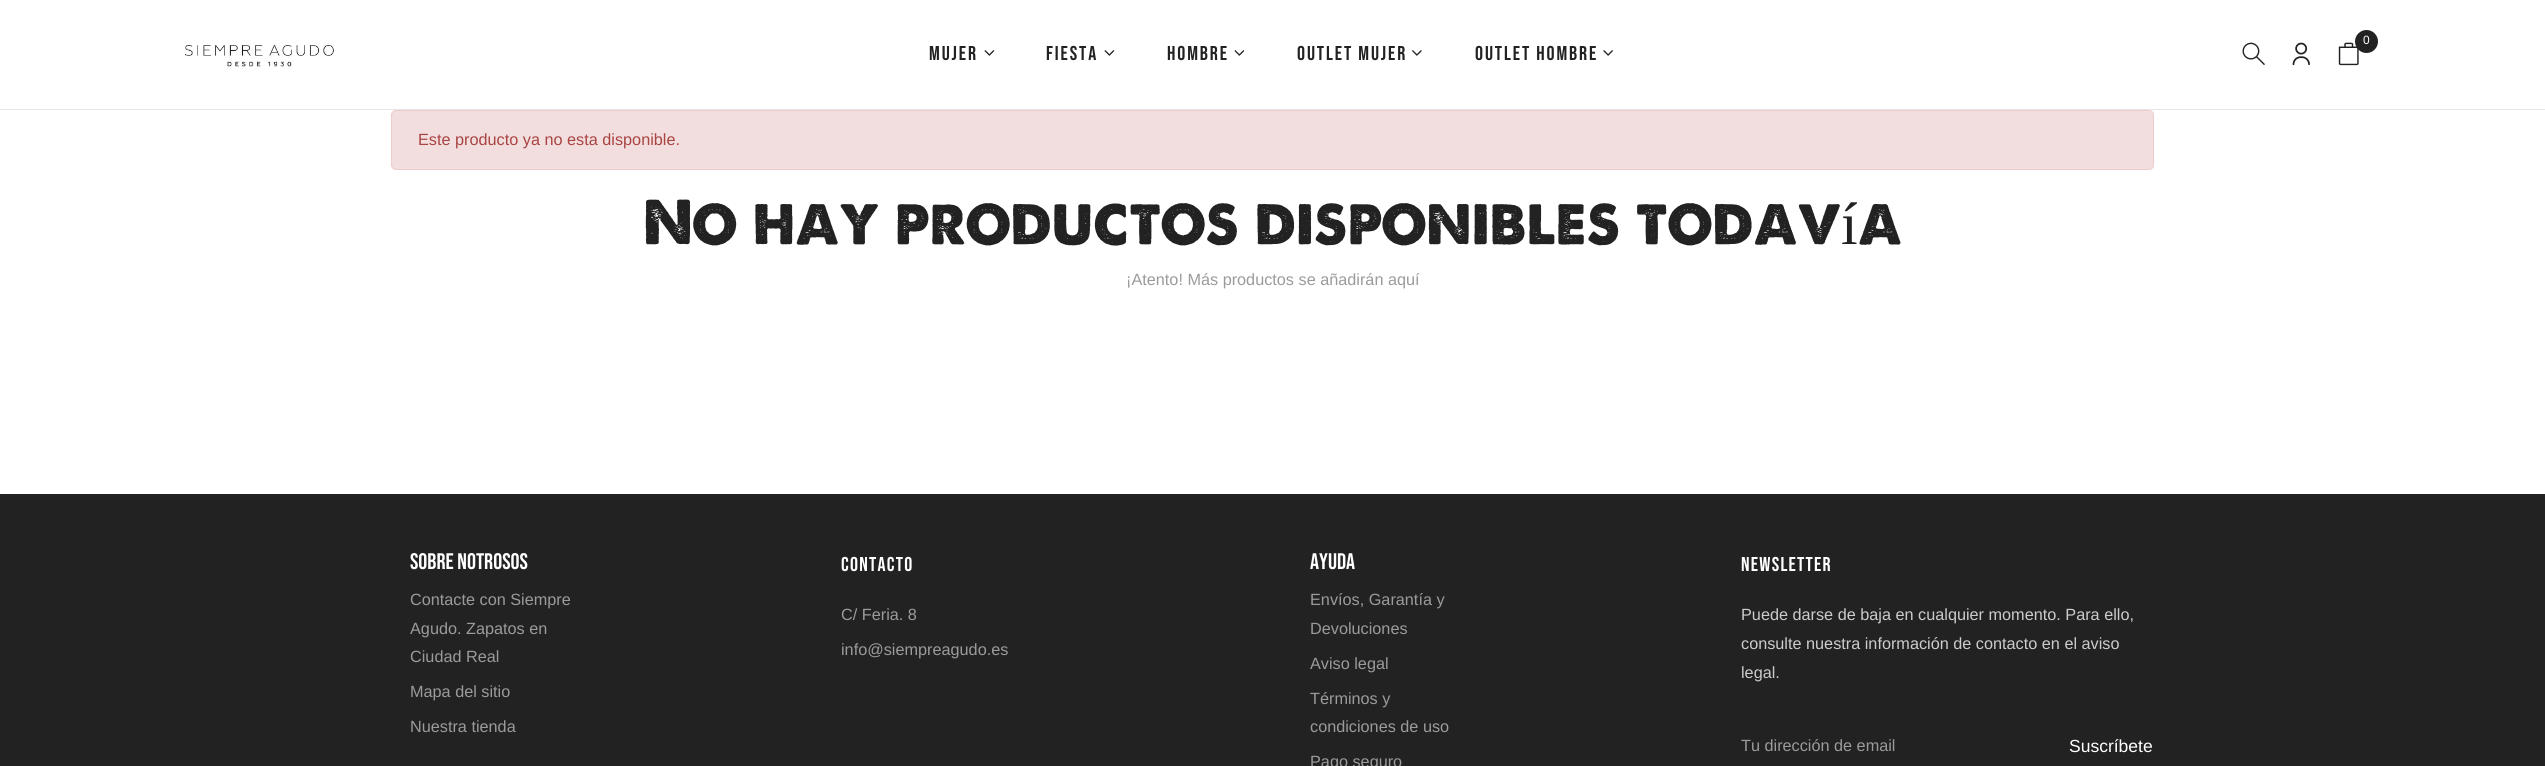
import math
import cairo


def write_spaced(ctx, x, y, s, letter, word):
	ctx.move_to(x, y)
	for ch in s:
		ctx.show_text(ch)
		ctx.rel_move_to(letter + word * (ch == ' '), 0)

def round_path(ctx, x, y, w, h, r):
	ctx.new_sub_path()
	for i, (u, v) in enumerate([(x + w - r, y + h - r), (x + r, y + h - r), (x + r, y + r), (x + w - r, y + r)]):
		ctx.arc(u, v, r, i * math.pi / 2, (i + 1) * math.pi / 2)
	ctx.close_path()

def paste(ctx, path, x, y, w, h):
	ctx.save()
	ctx.set_source_surface(cairo.ImageSurface.create_from_png(path), x, y)
	ctx.rectangle(x, y, w, h)
	ctx.fill()
	ctx.restore()

def draw(ctx):
	ctx.set_source_rgb(1, 1, 1)
	ctx.paint()
	ctx.set_source_rgb(0.898, 0.898, 0.898)
	ctx.rectangle(0, 109, 2545, 1)
	ctx.fill()
	paste(ctx, 'media/1.png', 2338, 42, 21, 24)
	ctx.set_source_rgb(0.133, 0.133, 0.133)
	ctx.arc(2366.5, 41.5, 11.5, 0, 2 * math.pi)
	ctx.fill()
	ctx.select_font_face('Liberation Sans')
	ctx.set_font_size(12)
	ctx.set_source_rgb(1, 1, 1)
	ctx.move_to(2363, 44)
	ctx.show_text('0')
	paste(ctx, 'media/2.png', 2242, 42, 23, 23)
	paste(ctx, 'media/3.png', 2292, 42, 18, 24)
	paste(ctx, 'media/4.png', 185, 45, 149, 22)
	ctx.select_font_face('Bebas Neue')
	ctx.set_font_size(20)
	ctx.set_source_rgb(0.133, 0.133, 0.133)
	write_spaced(ctx, 929, 60, 'MUJER', 1.9, 0)
	paste(ctx, 'media/5.png', 984, 50, 11, 6)
	write_spaced(ctx, 1046, 60, 'FIESTA', 1.9, 0)
	paste(ctx, 'media/5.png', 1104, 50, 11, 6)
	write_spaced(ctx, 1167, 60, 'HOMBRE', 1.9, 0)
	paste(ctx, 'media/5.png', 1234, 50, 11, 6)
	write_spaced(ctx, 1297, 60, 'OUTLET MUJER', 1.9, 0)
	paste(ctx, 'media/6.png', 1412, 50, 10, 6)
	write_spaced(ctx, 1475, 60, 'OUTLET HOMBRE', 1.9, 0)
	paste(ctx, 'media/7.png', 1603, 50, 10, 6)
	ctx.set_source_rgb(0.949, 0.871, 0.871)
	round_path(ctx, 391.5, 110.5, 1762, 59, 4.5)
	ctx.fill_preserve()
	ctx.set_source_rgb(0.922, 0.8, 0.8)
	ctx.set_line_width(1)
	ctx.stroke()
	ctx.select_font_face('Liberation Sans')
	ctx.set_font_size(16.25)
	ctx.set_source_rgb(0.663, 0.267, 0.259)
	ctx.move_to(418, 145)
	ctx.show_text('Este producto ya no esta disponible.')
	ctx.select_font_face('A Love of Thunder')
	ctx.set_font_size(60)
	ctx.set_source_rgb(0.133, 0.133, 0.133)
	ctx.move_to(643, 244)
	ctx.show_text('No hay productos disponibles todav')
	ctx.select_font_face('Liberation Serif')
	ctx.move_to(1841, 244)
	ctx.show_text('í')
	ctx.select_font_face('A Love of Thunder')
	ctx.move_to(1858, 244)
	ctx.show_text('a')
	ctx.select_font_face('Liberation Sans')
	ctx.set_font_size(16.25)
	ctx.set_source_rgb(0.608, 0.608, 0.608)
	ctx.move_to(1126, 285)
	ctx.show_text('¡Atento! Más productos se añadirán aquí')
	ctx.set_source_rgb(0.133, 0.133, 0.133)
	ctx.rectangle(0, 494, 2545, 272)
	ctx.fill()
	ctx.select_font_face('Bebas Neue')
	ctx.set_font_size(22.5)
	ctx.set_source_rgb(1, 1, 1)
	ctx.move_to(410, 569)
	ctx.show_text('Sobre notrosos')
	ctx.select_font_face('Liberation Sans')
	ctx.set_font_size(16.25)
	ctx.set_source_rgb(0.608, 0.608, 0.608)
	for x, y, s in [
		(410, 605, 'Contacte con Siempre'),
		(410, 634, 'Agudo. Zapatos en'),
		(410, 662, 'Ciudad Real'),
		(410, 697, 'Mapa del sitio'),
		(410, 732, 'Nuestra tienda'),
	]:
		ctx.move_to(x, y)
		ctx.show_text(s)
	ctx.select_font_face('Bebas Neue')
	ctx.set_font_size(20)
	ctx.set_source_rgb(1, 1, 1)
	write_spaced(ctx, 841, 571, 'CONTACTO', 1.25, 0)
	ctx.select_font_face('Liberation Sans')
	ctx.set_font_size(16.25)
	ctx.set_source_rgb(0.608, 0.608, 0.608)
	ctx.move_to(841, 620)
	ctx.show_text('C/ Feria. 8')
	ctx.move_to(841, 655)
	ctx.show_text('info@siempreagudo.es')
	ctx.select_font_face('Bebas Neue')
	ctx.set_font_size(22.5)
	ctx.set_source_rgb(1, 1, 1)
	ctx.move_to(1310, 569)
	ctx.show_text('AYUDA')
	ctx.select_font_face('Liberation Sans')
	ctx.set_font_size(16.25)
	ctx.set_source_rgb(0.608, 0.608, 0.608)
	for x, y, s in [
		(1310, 605, 'Envíos, Garantía y'),
		(1310, 634, 'Devoluciones'),
		(1310, 669, 'Aviso legal'),
		(1310, 704, 'Términos y'),
		(1310, 732, 'condiciones de uso'),
		(1310, 767, 'Pago seguro'),
	]:
		ctx.move_to(x, y)
		ctx.show_text(s)
	ctx.select_font_face('Bebas Neue')
	ctx.set_font_size(20)
	ctx.set_source_rgb(1, 1, 1)
	write_spaced(ctx, 1741, 571, 'NEWSLETTER', 1.25, 0)
	ctx.select_font_face('Liberation Sans')
	ctx.set_font_size(16.25)
	ctx.set_source_rgb(0.8, 0.8, 0.8)
	for x, y, s in [
		(1741, 620, 'Puede darse de baja en cualquier momento. Para ello,'),
		(1741, 649, 'consulte nuestra información de contacto en el aviso'),
		(1741, 678, 'legal.'),
	]:
		ctx.move_to(x, y)
		ctx.show_text(s)
	ctx.set_source_rgb(0.608, 0.608, 0.608)
	ctx.move_to(1741, 751)
	ctx.show_text('Tu dirección de email')
	ctx.set_font_size(17.5)
	ctx.set_source_rgb(1, 1, 1)
	ctx.move_to(2069, 752)
	ctx.show_text('Suscríbete')


surface = cairo.ImageSurface(cairo.FORMAT_RGB24, 2545, 766)
ctx = cairo.Context(surface)
options = cairo.FontOptions()
options.set_hint_metrics(cairo.HINT_METRICS_OFF)
options.set_hint_style(cairo.HINT_STYLE_NONE)
ctx.set_font_options(options)
ctx.set_miter_limit(4)
draw(ctx)
surface.write_to_png('image.png')
